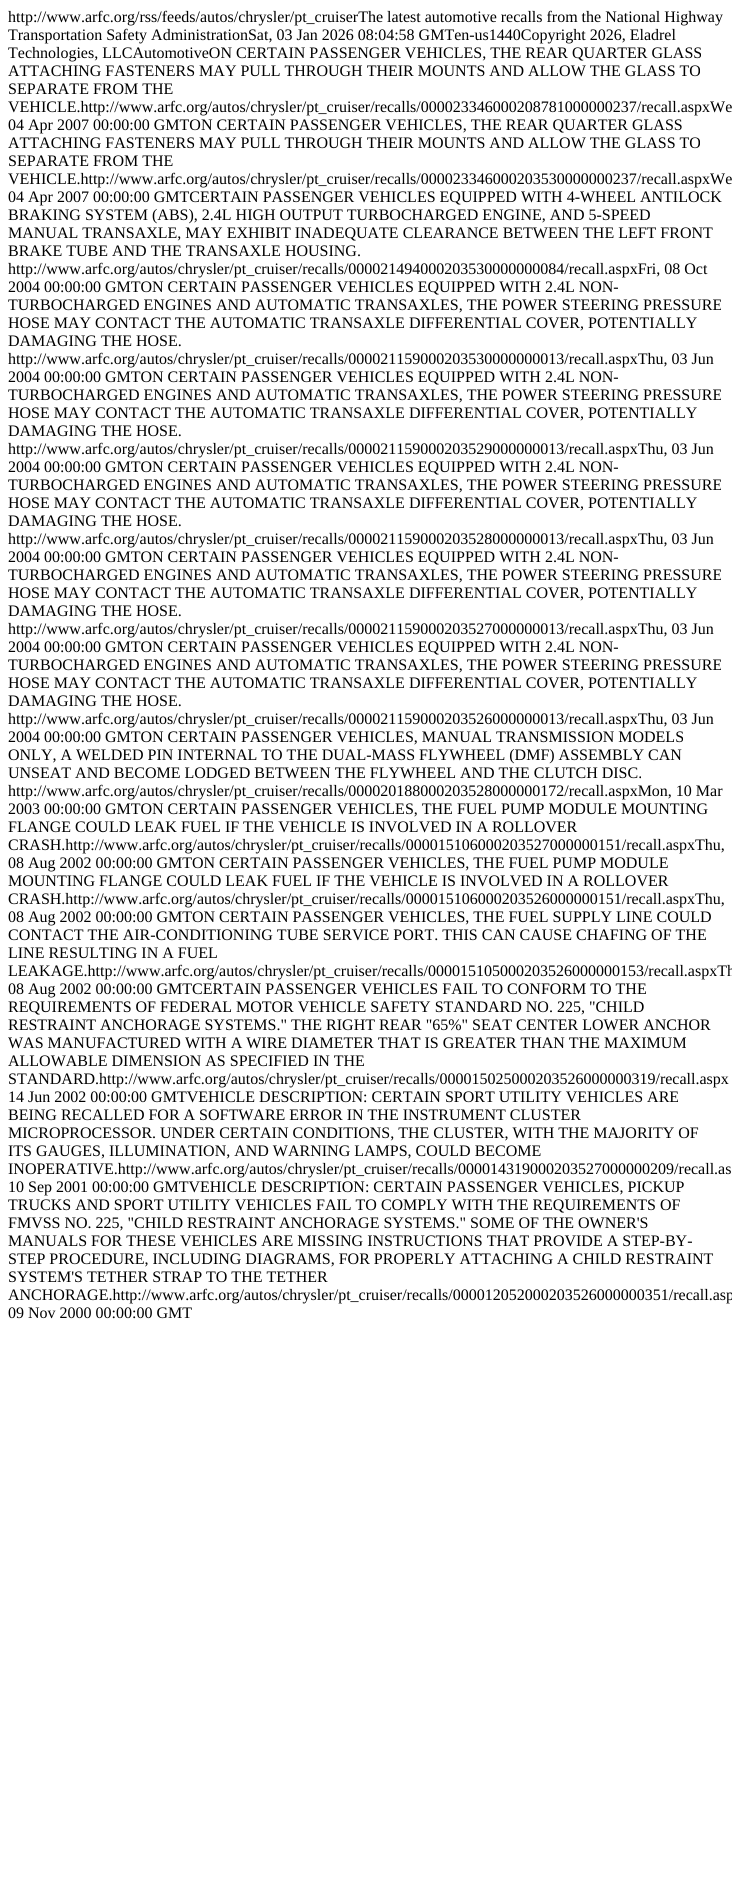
import math
import cairo


def draw(ctx):
	ctx.set_source_rgb(1, 1, 1)
	ctx.paint()
	ctx.select_font_face('Liberation Serif')
	ctx.set_font_size(16)
	ctx.set_source_rgb(0, 0, 0)
	for x, y, s in [
		(8, 22, 'http://www.arfc.org/rss/feeds/autos/chrysler/pt_cruiserThe latest automotive recalls from the National Highway'),
		(8, 40, 'Transportation Safety AdministrationSat, 03 Jan 2026 08:04:58 GMTen-us1440Copyright 2026, Eladrel'),
		(8, 58, 'Technologies, LLCAutomotiveON CERTAIN PASSENGER VEHICLES, THE REAR QUARTER GLASS'),
		(8, 76, 'ATTACHING FASTENERS MAY PULL THROUGH THEIR MOUNTS AND ALLOW THE GLASS TO'),
		(8, 94, 'SEPARATE FROM THE'),
		(8, 112, 'VEHICLE.http://www.arfc.org/autos/chrysler/pt_cruiser/recalls/000023346000208781000000237/recall.aspxWe'),
		(8, 130, '04 Apr 2007 00:00:00 GMTON CERTAIN PASSENGER VEHICLES, THE REAR QUARTER GLASS'),
		(8, 148, 'ATTACHING FASTENERS MAY PULL THROUGH THEIR MOUNTS AND ALLOW THE GLASS TO'),
		(8, 166, 'SEPARATE FROM THE'),
		(8, 184, 'VEHICLE.http://www.arfc.org/autos/chrysler/pt_cruiser/recalls/000023346000203530000000237/recall.aspxWe'),
		(8, 202, '04 Apr 2007 00:00:00 GMTCERTAIN PASSENGER VEHICLES EQUIPPED WITH 4-WHEEL ANTILOCK'),
		(8, 220, 'BRAKING SYSTEM (ABS), 2.4L HIGH OUTPUT TURBOCHARGED ENGINE, AND 5-SPEED'),
		(8, 238, 'MANUAL TRANSAXLE, MAY EXHIBIT INADEQUATE CLEARANCE BETWEEN THE LEFT FRONT'),
		(8, 256, 'BRAKE TUBE AND THE TRANSAXLE HOUSING.'),
		(8, 274, 'http://www.arfc.org/autos/chrysler/pt_cruiser/recalls/000021494000203530000000084/recall.aspxFri, 08 Oct'),
		(8, 292, '2004 00:00:00 GMTON CERTAIN PASSENGER VEHICLES EQUIPPED WITH 2.4L NON-'),
		(8, 310, 'TURBOCHARGED ENGINES AND AUTOMATIC TRANSAXLES, THE POWER STEERING PRESSURE'),
		(8, 328, 'HOSE MAY CONTACT THE AUTOMATIC TRANSAXLE DIFFERENTIAL COVER, POTENTIALLY'),
		(8, 346, 'DAMAGING THE HOSE.'),
		(8, 364, 'http://www.arfc.org/autos/chrysler/pt_cruiser/recalls/000021159000203530000000013/recall.aspxThu, 03 Jun'),
		(8, 382, '2004 00:00:00 GMTON CERTAIN PASSENGER VEHICLES EQUIPPED WITH 2.4L NON-'),
		(8, 400, 'TURBOCHARGED ENGINES AND AUTOMATIC TRANSAXLES, THE POWER STEERING PRESSURE'),
		(8, 418, 'HOSE MAY CONTACT THE AUTOMATIC TRANSAXLE DIFFERENTIAL COVER, POTENTIALLY'),
		(8, 436, 'DAMAGING THE HOSE.'),
		(8, 454, 'http://www.arfc.org/autos/chrysler/pt_cruiser/recalls/000021159000203529000000013/recall.aspxThu, 03 Jun'),
		(8, 472, '2004 00:00:00 GMTON CERTAIN PASSENGER VEHICLES EQUIPPED WITH 2.4L NON-'),
		(8, 490, 'TURBOCHARGED ENGINES AND AUTOMATIC TRANSAXLES, THE POWER STEERING PRESSURE'),
		(8, 508, 'HOSE MAY CONTACT THE AUTOMATIC TRANSAXLE DIFFERENTIAL COVER, POTENTIALLY'),
		(8, 526, 'DAMAGING THE HOSE.'),
		(8, 544, 'http://www.arfc.org/autos/chrysler/pt_cruiser/recalls/000021159000203528000000013/recall.aspxThu, 03 Jun'),
		(8, 562, '2004 00:00:00 GMTON CERTAIN PASSENGER VEHICLES EQUIPPED WITH 2.4L NON-'),
		(8, 580, 'TURBOCHARGED ENGINES AND AUTOMATIC TRANSAXLES, THE POWER STEERING PRESSURE'),
		(8, 598, 'HOSE MAY CONTACT THE AUTOMATIC TRANSAXLE DIFFERENTIAL COVER, POTENTIALLY'),
		(8, 616, 'DAMAGING THE HOSE.'),
		(8, 634, 'http://www.arfc.org/autos/chrysler/pt_cruiser/recalls/000021159000203527000000013/recall.aspxThu, 03 Jun'),
		(8, 652, '2004 00:00:00 GMTON CERTAIN PASSENGER VEHICLES EQUIPPED WITH 2.4L NON-'),
		(8, 670, 'TURBOCHARGED ENGINES AND AUTOMATIC TRANSAXLES, THE POWER STEERING PRESSURE'),
		(8, 688, 'HOSE MAY CONTACT THE AUTOMATIC TRANSAXLE DIFFERENTIAL COVER, POTENTIALLY'),
		(8, 706, 'DAMAGING THE HOSE.'),
		(8, 724, 'http://www.arfc.org/autos/chrysler/pt_cruiser/recalls/000021159000203526000000013/recall.aspxThu, 03 Jun'),
		(8, 742, '2004 00:00:00 GMTON CERTAIN PASSENGER VEHICLES, MANUAL TRANSMISSION MODELS'),
		(8, 760, 'ONLY, A WELDED PIN INTERNAL TO THE DUAL-MASS FLYWHEEL (DMF) ASSEMBLY CAN'),
		(8, 778, 'UNSEAT AND BECOME LODGED BETWEEN THE FLYWHEEL AND THE CLUTCH DISC.'),
		(8, 796, 'http://www.arfc.org/autos/chrysler/pt_cruiser/recalls/000020188000203528000000172/recall.aspxMon, 10 Mar'),
		(8, 814, '2003 00:00:00 GMTON CERTAIN PASSENGER VEHICLES, THE FUEL PUMP MODULE MOUNTING'),
		(8, 832, 'FLANGE COULD LEAK FUEL IF THE VEHICLE IS INVOLVED IN A ROLLOVER'),
		(8, 850, 'CRASH.http://www.arfc.org/autos/chrysler/pt_cruiser/recalls/000015106000203527000000151/recall.aspxThu,'),
		(8, 868, '08 Aug 2002 00:00:00 GMTON CERTAIN PASSENGER VEHICLES, THE FUEL PUMP MODULE'),
		(8, 886, 'MOUNTING FLANGE COULD LEAK FUEL IF THE VEHICLE IS INVOLVED IN A ROLLOVER'),
		(8, 904, 'CRASH.http://www.arfc.org/autos/chrysler/pt_cruiser/recalls/000015106000203526000000151/recall.aspxThu,'),
		(8, 922, '08 Aug 2002 00:00:00 GMTON CERTAIN PASSENGER VEHICLES, THE FUEL SUPPLY LINE COULD'),
		(8, 940, 'CONTACT THE AIR-CONDITIONING TUBE SERVICE PORT. THIS CAN CAUSE CHAFING OF THE'),
		(8, 958, 'LINE RESULTING IN A FUEL'),
		(8, 976, 'LEAKAGE.http://www.arfc.org/autos/chrysler/pt_cruiser/recalls/000015105000203526000000153/recall.aspxTh'),
		(8, 994, '08 Aug 2002 00:00:00 GMTCERTAIN PASSENGER VEHICLES FAIL TO CONFORM TO THE'),
		(8, 1012, 'REQUIREMENTS OF FEDERAL MOTOR VEHICLE SAFETY STANDARD NO. 225, "CHILD'),
		(8, 1030, 'RESTRAINT ANCHORAGE SYSTEMS." THE RIGHT REAR "65%" SEAT CENTER LOWER ANCHOR'),
		(8, 1048, 'WAS MANUFACTURED WITH A WIRE DIAMETER THAT IS GREATER THAN THE MAXIMUM'),
		(8, 1066, 'ALLOWABLE DIMENSION AS SPECIFIED IN THE'),
		(8, 1084, 'STANDARD.http://www.arfc.org/autos/chrysler/pt_cruiser/recalls/000015025000203526000000319/recall.aspx'),
		(8, 1102, '14 Jun 2002 00:00:00 GMTVEHICLE DESCRIPTION: CERTAIN SPORT UTILITY VEHICLES ARE'),
		(8, 1120, 'BEING RECALLED FOR A SOFTWARE ERROR IN THE INSTRUMENT CLUSTER'),
		(8, 1138, 'MICROPROCESSOR. UNDER CERTAIN CONDITIONS, THE CLUSTER, WITH THE MAJORITY OF'),
		(8, 1156, 'ITS GAUGES, ILLUMINATION, AND WARNING LAMPS, COULD BECOME'),
		(8, 1174, 'INOPERATIVE.http://www.arfc.org/autos/chrysler/pt_cruiser/recalls/000014319000203527000000209/recall.as'),
		(8, 1192, '10 Sep 2001 00:00:00 GMTVEHICLE DESCRIPTION: CERTAIN PASSENGER VEHICLES, PICKUP'),
		(8, 1210, 'TRUCKS AND SPORT UTILITY VEHICLES FAIL TO COMPLY WITH THE REQUIREMENTS OF'),
		(8, 1228, 'FMVSS NO. 225, "CHILD RESTRAINT ANCHORAGE SYSTEMS." SOME OF THE OWNER\'S'),
		(8, 1246, 'MANUALS FOR THESE VEHICLES ARE MISSING INSTRUCTIONS THAT PROVIDE A STEP-BY-'),
		(8, 1264, 'STEP PROCEDURE, INCLUDING DIAGRAMS, FOR PROPERLY ATTACHING A CHILD RESTRAINT'),
		(8, 1282, 'SYSTEM\'S TETHER STRAP TO THE TETHER'),
		(8, 1300, 'ANCHORAGE.http://www.arfc.org/autos/chrysler/pt_cruiser/recalls/000012052000203526000000351/recall.asp'),
		(8, 1318, '09 Nov 2000 00:00:00 GMT'),
	]:
		ctx.move_to(x, y)
		ctx.show_text(s)


surface = cairo.ImageSurface(cairo.FORMAT_RGB24, 732, 1879)
ctx = cairo.Context(surface)
options = cairo.FontOptions()
options.set_hint_metrics(cairo.HINT_METRICS_OFF)
options.set_hint_style(cairo.HINT_STYLE_NONE)
ctx.set_font_options(options)
ctx.set_miter_limit(4)
draw(ctx)
surface.write_to_png('image.png')
